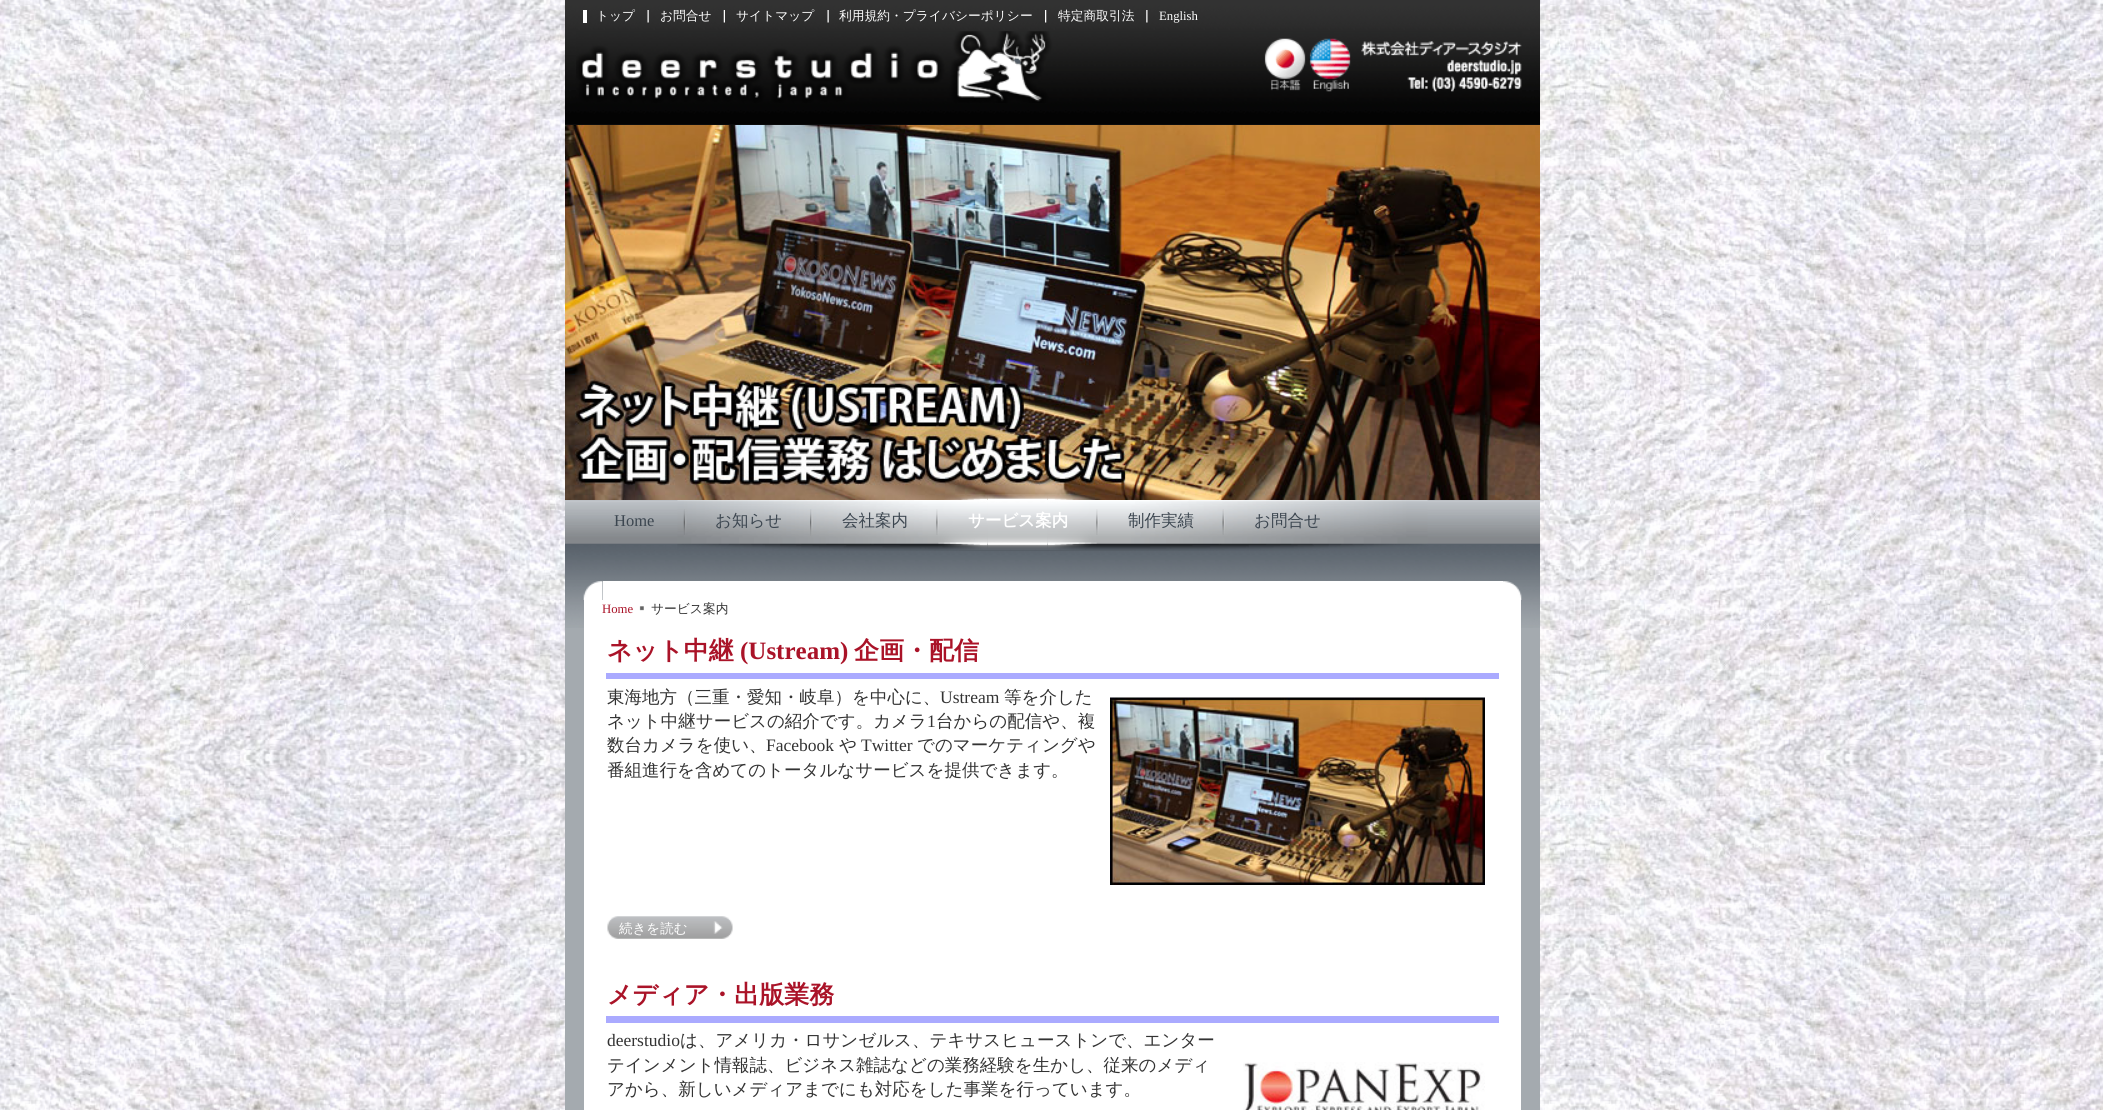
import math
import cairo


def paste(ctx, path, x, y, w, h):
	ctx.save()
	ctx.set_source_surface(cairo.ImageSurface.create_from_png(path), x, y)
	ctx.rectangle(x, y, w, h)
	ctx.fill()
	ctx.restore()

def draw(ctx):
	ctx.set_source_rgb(1, 1, 1)
	ctx.paint()
	paste(ctx, 'media/1.png', 0, 0, 2103, 1110)
	ctx.set_source_rgb(0.643, 0.667, 0.686)
	ctx.rectangle(565, 628, 975, 482)
	ctx.fill()
	paste(ctx, 'media/2.png', 565, 0, 975, 628)
	paste(ctx, 'media/3.png', 677, 500, 751, 51)
	ctx.set_source_rgb(1, 1, 1)
	ctx.rectangle(583, 10, 4, 13)
	ctx.fill()
	ctx.select_font_face('WenQuanYi Zen Hei Medium')
	ctx.set_font_size(12.75)
	ctx.move_to(596, 20)
	ctx.show_text('トップ')
	paste(ctx, 'media/4.png', 647, 10, 2, 13)
	ctx.move_to(660, 20)
	ctx.show_text('お問合せ')
	paste(ctx, 'media/5.png', 723, 10, 2, 13)
	ctx.move_to(736, 20)
	ctx.show_text('サイトマップ')
	paste(ctx, 'media/6.png', 827, 10, 2, 13)
	ctx.move_to(839, 20)
	ctx.show_text('利用規約・プライバシーポリシー')
	paste(ctx, 'media/7.png', 1045, 10, 2, 13)
	ctx.move_to(1058, 20)
	ctx.show_text('特定商取引法')
	paste(ctx, 'media/8.png', 1146, 10, 2, 13)
	ctx.select_font_face('Liberation Serif')
	ctx.move_to(1159, 20)
	ctx.show_text('English')
	paste(ctx, 'media/9.png', 576, 31, 946, 72)
	paste(ctx, 'media/10.png', 810, 509, 3, 27)
	ctx.select_font_face('WenQuanYi Zen Hei Medium')
	ctx.set_font_size(16.5)
	ctx.set_source_rgb(0.235, 0.275, 0.314)
	ctx.move_to(842, 526)
	ctx.show_text('会社案内')
	paste(ctx, 'media/18.png', 565, 125, 975, 375)
	paste(ctx, 'media/12.png', 987, 494, 61, 56)
	paste(ctx, 'media/11.png', 938, 494, 50, 56)
	paste(ctx, 'media/13.png', 1047, 494, 50, 56)
	ctx.select_font_face('Liberation Serif')
	ctx.move_to(614, 526)
	ctx.show_text('Home')
	paste(ctx, 'media/14.png', 683, 509, 4, 26)
	ctx.select_font_face('WenQuanYi Zen Hei Medium')
	ctx.move_to(715, 526)
	ctx.show_text('お知らせ')
	paste(ctx, 'media/15.png', 936, 509, 3, 26)
	ctx.select_font_face('WenQuanYi Zen Hei', cairo.FONT_SLANT_NORMAL, cairo.FONT_WEIGHT_BOLD)
	ctx.set_source_rgb(1, 1, 1)
	ctx.move_to(968, 526)
	ctx.show_text('サービス案内')
	paste(ctx, 'media/16.png', 1096, 509, 3, 26)
	ctx.select_font_face('WenQuanYi Zen Hei Medium')
	ctx.set_source_rgb(0.235, 0.275, 0.314)
	ctx.move_to(1128, 526)
	ctx.show_text('制作実績')
	paste(ctx, 'media/17.png', 1222, 509, 3, 26)
	ctx.move_to(1254, 526)
	ctx.show_text('お問合せ')
	paste(ctx, 'media/19.png', 583, 581, 20, 19)
	ctx.set_source_rgb(1, 1, 1)
	ctx.rectangle(603, 581, 900, 19)
	ctx.fill()
	paste(ctx, 'media/20.png', 1503, 581, 19, 19)
	ctx.rectangle(584, 600, 937, 510)
	ctx.fill()
	ctx.select_font_face('Liberation Serif')
	ctx.set_font_size(12.75)
	ctx.set_source_rgb(0.667, 0.078, 0.157)
	ctx.move_to(602, 613)
	ctx.show_text('Home')
	paste(ctx, 'media/21.png', 639, 606, 5, 5)
	ctx.select_font_face('WenQuanYi Zen Hei Medium')
	ctx.set_source_rgb(0.2, 0.2, 0.2)
	ctx.move_to(651, 613)
	ctx.show_text('サービス案内')
	ctx.set_source_rgb(0.667, 0.667, 1)
	ctx.rectangle(606, 673, 893, 6)
	ctx.fill()
	ctx.select_font_face('WenQuanYi Zen Hei', cairo.FONT_SLANT_NORMAL, cairo.FONT_WEIGHT_BOLD)
	ctx.set_font_size(25)
	ctx.set_source_rgb(0.667, 0.078, 0.157)
	ctx.move_to(607, 659)
	ctx.show_text('ネット中継')
	ctx.select_font_face('Liberation Serif', cairo.FONT_SLANT_NORMAL, cairo.FONT_WEIGHT_BOLD)
	ctx.move_to(740, 659)
	ctx.show_text('(Ustream)')
	ctx.select_font_face('WenQuanYi Zen Hei', cairo.FONT_SLANT_NORMAL, cairo.FONT_WEIGHT_BOLD)
	ctx.move_to(854, 659)
	ctx.show_text('企画・配信')
	ctx.select_font_face('WenQuanYi Zen Hei Medium')
	ctx.set_font_size(17.5)
	ctx.set_source_rgb(0.2, 0.2, 0.2)
	ctx.move_to(607, 703)
	ctx.show_text('東海地方（三重・愛知・岐阜）を中心に、')
	ctx.select_font_face('Liberation Serif')
	ctx.move_to(940, 703)
	ctx.show_text('Ustream')
	ctx.select_font_face('WenQuanYi Zen Hei Medium')
	ctx.move_to(1004, 703)
	ctx.show_text('等を介した')
	paste(ctx, 'media/22.png', 1110, 697, 375, 188)
	ctx.move_to(607, 727)
	ctx.show_text('ネット中継サービスの紹介です。カメラ')
	ctx.select_font_face('Liberation Serif')
	ctx.move_to(927, 727)
	ctx.show_text('1')
	ctx.select_font_face('WenQuanYi Zen Hei Medium')
	ctx.move_to(936, 727)
	ctx.show_text('台からの配信や、複')
	ctx.move_to(607, 751)
	ctx.show_text('数台カメラを使い、')
	ctx.select_font_face('Liberation Serif')
	ctx.move_to(766, 751)
	ctx.show_text('Facebook')
	ctx.select_font_face('WenQuanYi Zen Hei Medium')
	ctx.move_to(839, 751)
	ctx.show_text('や')
	ctx.select_font_face('Liberation Serif')
	ctx.move_to(861, 751)
	ctx.show_text('Twitter')
	ctx.select_font_face('WenQuanYi Zen Hei Medium')
	ctx.move_to(917, 751)
	ctx.show_text('でのマーケティングや')
	ctx.move_to(607, 776)
	ctx.show_text('番組進行を含めてのトータルなサービスを提供できます。')
	paste(ctx, 'media/23.png', 607, 916, 126, 23)
	ctx.set_font_size(13.5)
	ctx.set_source_rgb(1, 1, 1)
	ctx.move_to(619, 933)
	ctx.show_text('続きを読む')
	ctx.set_source_rgb(0.667, 0.667, 1)
	ctx.rectangle(606, 1016, 893, 7)
	ctx.fill()
	ctx.select_font_face('WenQuanYi Zen Hei', cairo.FONT_SLANT_NORMAL, cairo.FONT_WEIGHT_BOLD)
	ctx.set_font_size(25)
	ctx.set_source_rgb(0.667, 0.078, 0.157)
	ctx.move_to(607, 1003)
	ctx.show_text('メディア・出版業務')
	ctx.select_font_face('Liberation Serif')
	ctx.set_font_size(17.5)
	ctx.set_source_rgb(0.2, 0.2, 0.2)
	ctx.move_to(607, 1046)
	ctx.show_text('deerstudio')
	ctx.select_font_face('WenQuanYi Zen Hei Medium')
	ctx.move_to(680, 1046)
	ctx.show_text('は、アメリカ・ロサンゼルス、テキサスヒューストンで、エンター')
	ctx.move_to(607, 1071)
	ctx.show_text('テインメント情報誌、ビジネス雑誌などの業務経験を生かし、従来のメディ')
	paste(ctx, 'media/24.png', 1243, 1062, 242, 48)
	ctx.move_to(607, 1095)
	ctx.show_text('アから、新しいメディアまでにも対応をした事業を行っています。')


surface = cairo.ImageSurface(cairo.FORMAT_RGB24, 2103, 1110)
ctx = cairo.Context(surface)
options = cairo.FontOptions()
options.set_hint_metrics(cairo.HINT_METRICS_OFF)
options.set_hint_style(cairo.HINT_STYLE_NONE)
ctx.set_font_options(options)
ctx.set_miter_limit(4)
draw(ctx)
surface.write_to_png('image.png')
